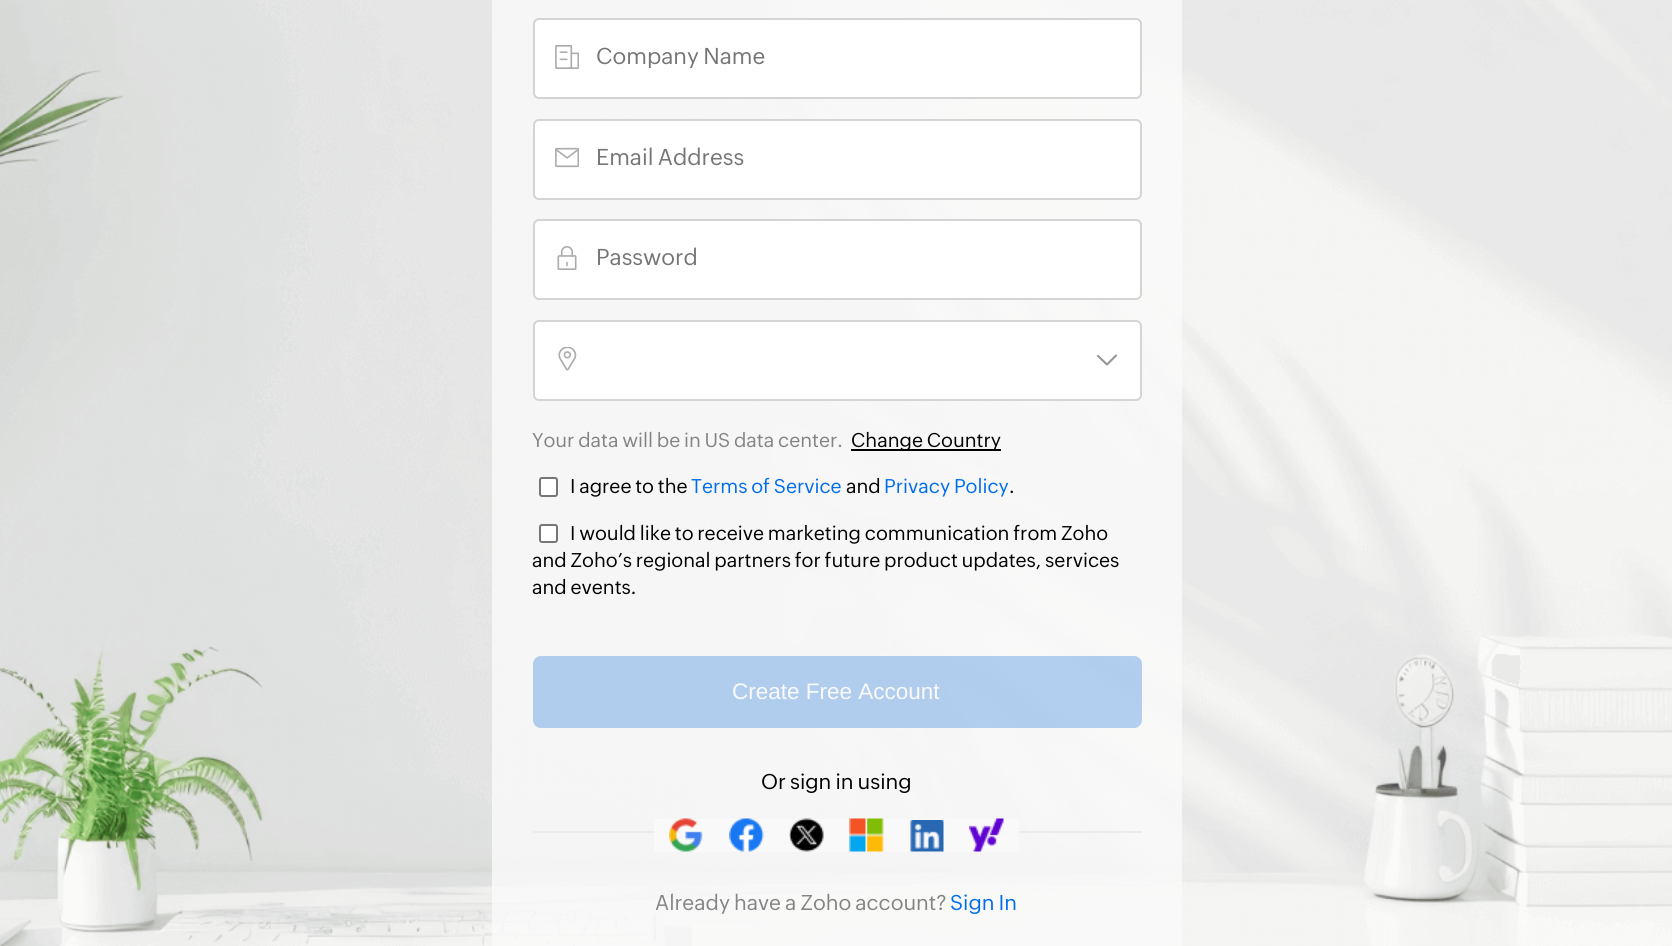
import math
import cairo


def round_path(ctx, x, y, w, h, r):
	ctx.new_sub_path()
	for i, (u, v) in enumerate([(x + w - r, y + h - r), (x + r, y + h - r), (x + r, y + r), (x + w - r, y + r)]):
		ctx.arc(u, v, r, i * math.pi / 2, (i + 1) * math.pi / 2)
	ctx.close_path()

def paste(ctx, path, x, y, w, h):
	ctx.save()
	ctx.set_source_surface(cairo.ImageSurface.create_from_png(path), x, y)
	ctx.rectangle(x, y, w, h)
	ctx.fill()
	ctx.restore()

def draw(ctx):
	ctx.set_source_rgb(1, 1, 1)
	ctx.paint()
	paste(ctx, 'media/1.png', 0, 0, 1672, 946)
	ctx.set_source_rgba(0.98, 0.98, 0.98, 0.8)
	ctx.rectangle(492, 0, 690, 946)
	ctx.fill()
	ctx.set_source_rgb(1, 1, 1)
	round_path(ctx, 534, 19, 607, 79, 5)
	ctx.fill_preserve()
	ctx.set_source_rgb(0.831, 0.831, 0.831)
	ctx.stroke()
	paste(ctx, 'media/2.png', 555, 45, 24, 24)
	ctx.select_font_face('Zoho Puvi')
	ctx.set_font_size(22.5)
	ctx.set_source_rgb(0.459, 0.459, 0.459)
	ctx.move_to(596, 64)
	ctx.show_text('Company Name')
	ctx.set_source_rgb(1, 1, 1)
	round_path(ctx, 534, 120, 607, 79, 5)
	ctx.fill_preserve()
	ctx.set_source_rgb(0.831, 0.831, 0.831)
	ctx.stroke()
	paste(ctx, 'media/3.png', 555, 147, 24, 21)
	ctx.set_source_rgb(0.459, 0.459, 0.459)
	ctx.move_to(596, 165)
	ctx.show_text('Email Address')
	ctx.set_source_rgb(1, 1, 1)
	round_path(ctx, 534, 220, 607, 79, 5)
	ctx.fill_preserve()
	ctx.set_source_rgb(0.831, 0.831, 0.831)
	ctx.stroke()
	paste(ctx, 'media/4.png', 557, 246, 20, 24)
	ctx.set_source_rgb(0.459, 0.459, 0.459)
	ctx.move_to(596, 265)
	ctx.show_text('Password')
	ctx.set_source_rgb(1, 1, 1)
	round_path(ctx, 534, 321, 607, 79, 5)
	ctx.fill_preserve()
	ctx.set_source_rgb(0.831, 0.831, 0.831)
	ctx.stroke()
	paste(ctx, 'media/5.png', 558, 347, 19, 24)
	ctx.new_path()
	ctx.move_to(1116, 355.5)
	ctx.line_to(1107, 364.5)
	ctx.line_to(1098, 356)
	ctx.move_to(1116, 355.5)
	ctx.line_to(1107, 364.5)
	ctx.line_to(1098, 356)
	ctx.set_source_rgb(0.588, 0.588, 0.588)
	ctx.set_line_width(2.1)
	ctx.set_line_cap(cairo.LINE_CAP_ROUND)
	ctx.set_line_join(cairo.LINE_JOIN_ROUND)
	ctx.stroke()
	ctx.set_font_size(19.5)
	ctx.set_source_rgb(0.518, 0.518, 0.518)
	ctx.move_to(532, 447)
	ctx.show_text('Your data will be in US data center.')
	ctx.set_source_rgb(0, 0, 0)
	ctx.rectangle(851, 449, 150, 2)
	ctx.fill()
	ctx.move_to(851, 447)
	ctx.show_text('Change Country')
	ctx.set_source_rgb(1, 1, 1)
	round_path(ctx, 540, 478, 17, 18, 2)
	ctx.fill_preserve()
	ctx.set_source_rgb(0.463, 0.463, 0.463)
	ctx.set_line_width(2)
	ctx.set_line_cap(cairo.LINE_CAP_BUTT)
	ctx.set_line_join(cairo.LINE_JOIN_MITER)
	ctx.stroke()
	ctx.set_source_rgb(0, 0, 0)
	ctx.move_to(570, 493)
	ctx.show_text('I agree to the')
	ctx.set_source_rgb(0, 0.427, 0.933)
	ctx.move_to(691, 493)
	ctx.show_text('Terms of Service')
	ctx.set_source_rgb(0, 0, 0)
	ctx.move_to(846, 493)
	ctx.show_text('and')
	ctx.set_source_rgb(0, 0.427, 0.933)
	ctx.move_to(884, 493)
	ctx.show_text('Privacy Policy')
	ctx.set_source_rgb(0, 0, 0)
	ctx.move_to(1009, 493)
	ctx.show_text('.')
	ctx.set_source_rgb(1, 1, 1)
	round_path(ctx, 540, 525, 17, 17, 2)
	ctx.fill_preserve()
	ctx.set_source_rgb(0.463, 0.463, 0.463)
	ctx.stroke()
	ctx.set_source_rgb(0, 0, 0)
	for x, y, s in [
		(570, 540, 'I would like to receive marketing communication from Zoho'),
		(532, 567, 'and Zoho’s regional partners for future product updates, services'),
		(532, 594, 'and events.'),
	]:
		ctx.move_to(x, y)
		ctx.show_text(s)
	ctx.set_source_rgba(0.063, 0.424, 0.851, 0.3)
	round_path(ctx, 533, 656, 609, 72, 8)
	ctx.fill()
	ctx.select_font_face('Liberation Sans')
	ctx.set_font_size(22.5)
	ctx.set_source_rgb(0.976, 0.976, 0.976)
	ctx.move_to(732, 699)
	ctx.show_text('Create Free Account')
	ctx.select_font_face('Zoho Puvi')
	ctx.set_font_size(21)
	ctx.set_source_rgb(0, 0, 0)
	ctx.move_to(761, 789)
	ctx.show_text('Or sign in using')
	ctx.set_source_rgb(0.922, 0.922, 0.922)
	ctx.rectangle(533, 831, 609, 2)
	ctx.fill()
	ctx.set_source_rgba(0.98, 0.98, 0.98, 0.8)
	ctx.rectangle(654, 819, 365, 33)
	ctx.fill()
	paste(ctx, 'media/6.png', 669, 818, 34, 34)
	paste(ctx, 'media/7.png', 729, 818, 35, 34)
	paste(ctx, 'media/8.png', 789, 818, 35, 34)
	paste(ctx, 'media/9.png', 849, 818, 35, 34)
	paste(ctx, 'media/10.png', 910, 820, 34, 32)
	paste(ctx, 'media/11.png', 969, 818, 35, 34)
	ctx.set_source_rgb(0.518, 0.518, 0.518)
	ctx.move_to(655, 910)
	ctx.show_text('Already have a Zoho account?')
	ctx.set_source_rgb(0, 0.427, 0.933)
	ctx.move_to(950, 910)
	ctx.show_text('Sign In')


surface = cairo.ImageSurface(cairo.FORMAT_RGB24, 1672, 946)
ctx = cairo.Context(surface)
options = cairo.FontOptions()
options.set_hint_metrics(cairo.HINT_METRICS_OFF)
options.set_hint_style(cairo.HINT_STYLE_NONE)
ctx.set_font_options(options)
ctx.set_miter_limit(4)
draw(ctx)
surface.write_to_png('image.png')
